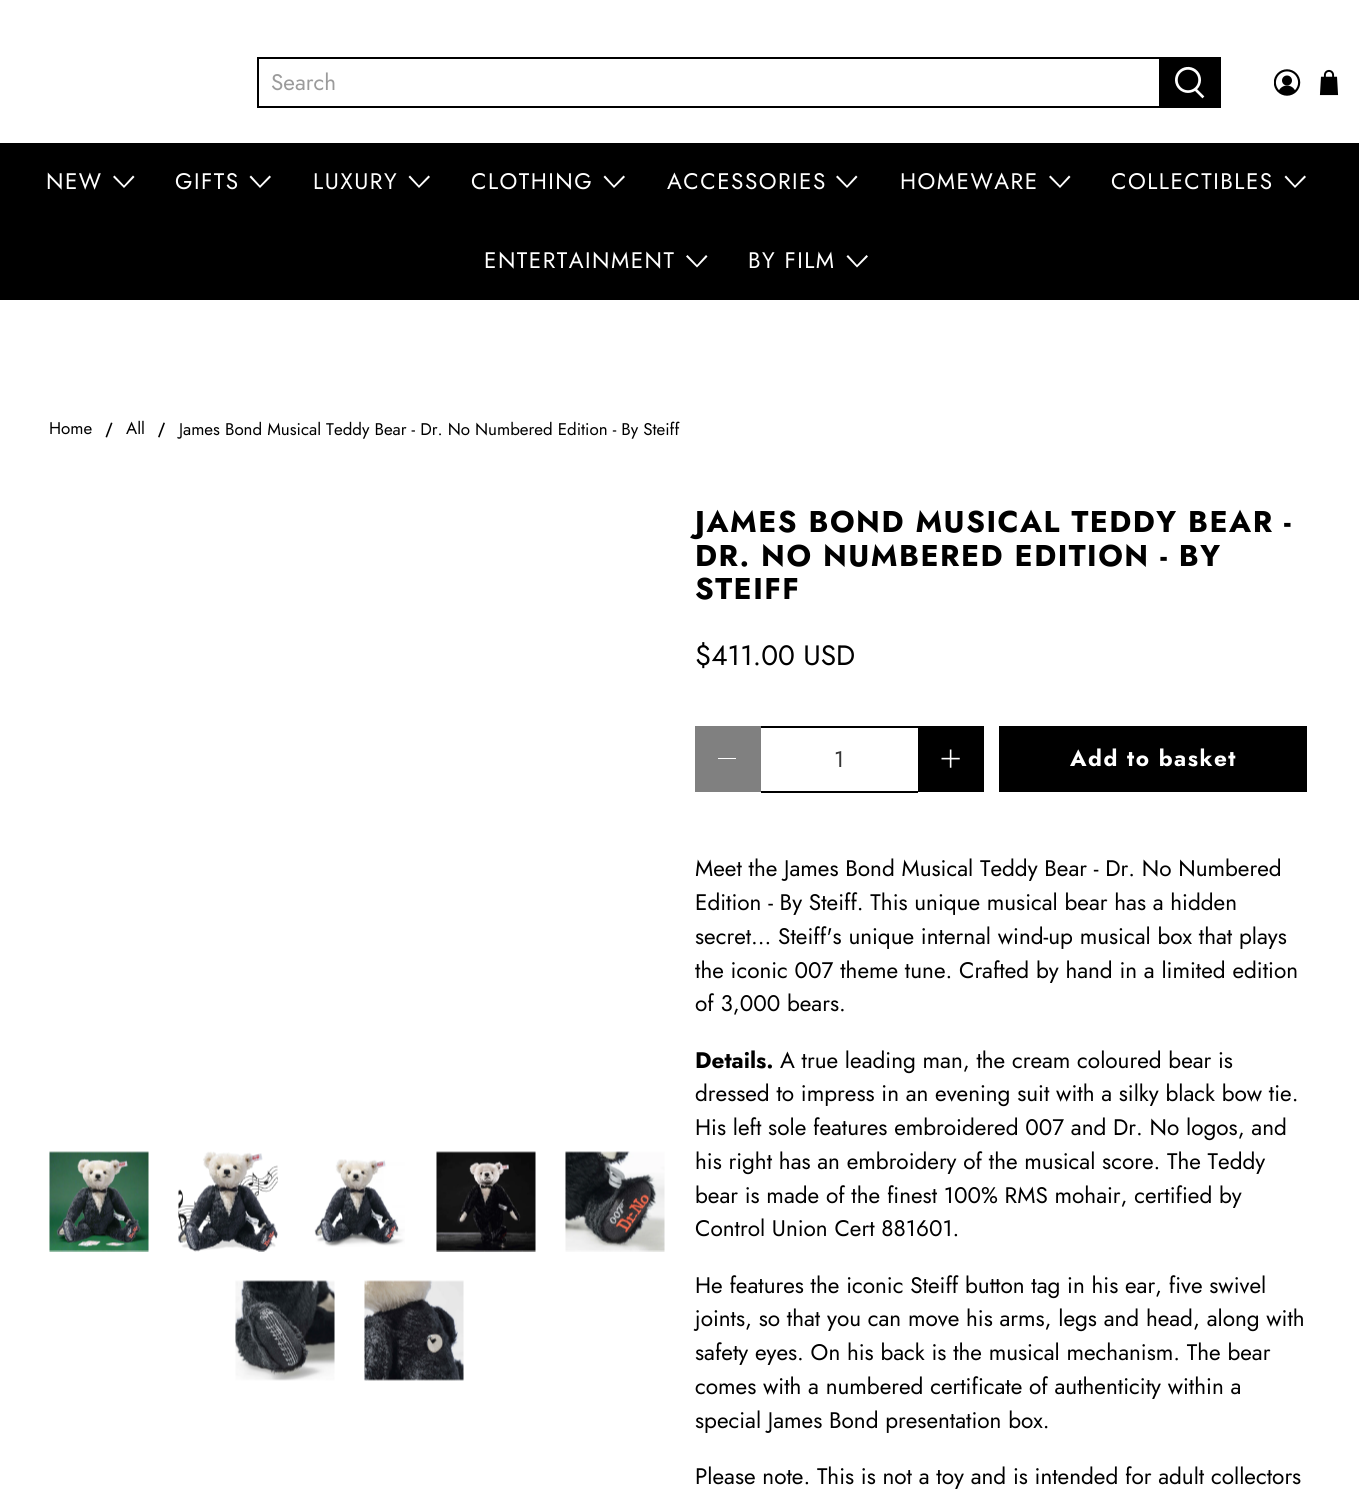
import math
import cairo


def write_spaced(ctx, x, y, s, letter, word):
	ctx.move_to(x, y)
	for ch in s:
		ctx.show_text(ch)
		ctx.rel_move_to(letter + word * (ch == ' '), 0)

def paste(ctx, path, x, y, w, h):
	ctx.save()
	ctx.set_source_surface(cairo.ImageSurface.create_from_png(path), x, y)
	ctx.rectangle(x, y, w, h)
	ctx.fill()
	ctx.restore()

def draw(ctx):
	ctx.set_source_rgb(1, 1, 1)
	ctx.paint()
	ctx.rectangle(258, 58, 902, 49)
	ctx.set_source_rgb(0, 0, 0)
	ctx.stroke()
	ctx.select_font_face('Jost')
	ctx.set_font_size(22.5)
	ctx.set_source_rgb(0.608, 0.608, 0.608)
	ctx.move_to(271, 90)
	ctx.show_text('Search')
	ctx.set_source_rgb(0, 0, 0)
	ctx.rectangle(1161, 57, 60, 51)
	ctx.fill()
	paste(ctx, 'media/1.png', 1175, 66, 30, 33)
	paste(ctx, 'media/2.png', 1274, 69, 27, 27)
	paste(ctx, 'media/3.png', 1319, 69, 20, 27)
	ctx.rectangle(0, 143, 1359, 157)
	ctx.fill()
	ctx.set_source_rgb(1, 1, 1)
	write_spaced(ctx, 46, 189, 'NEW', 1.5, 0)
	ctx.new_path()
	ctx.move_to(124, 188)
	ctx.line_to(113, 177)
	ctx.line_to(114.5, 175.5)
	ctx.line_to(124, 185.5)
	ctx.line_to(133, 175.5)
	ctx.line_to(134.5, 177)
	ctx.close_path()
	ctx.fill()
	write_spaced(ctx, 175, 189, 'GIFTS', 1.5, 0)
	ctx.new_path()
	ctx.move_to(260, 188)
	ctx.line_to(249.5, 177)
	ctx.line_to(251, 175.5)
	ctx.line_to(260, 185.5)
	ctx.line_to(269.5, 175.5)
	ctx.line_to(271, 177)
	ctx.close_path()
	ctx.fill()
	write_spaced(ctx, 313, 189, 'LUXURY', 1.5, 0)
	ctx.new_path()
	ctx.move_to(419, 188)
	ctx.line_to(408.5, 177)
	ctx.line_to(410, 175.5)
	ctx.line_to(419, 185.5)
	ctx.line_to(428.5, 175.5)
	ctx.line_to(430, 177)
	ctx.close_path()
	ctx.fill()
	write_spaced(ctx, 471, 189, 'CLOTHING', 1.5, 0)
	ctx.new_path()
	ctx.move_to(614, 188)
	ctx.line_to(603.5, 177)
	ctx.line_to(605, 175.5)
	ctx.line_to(614, 185.5)
	ctx.line_to(623.5, 175.5)
	ctx.line_to(625, 177)
	ctx.close_path()
	ctx.fill()
	write_spaced(ctx, 667, 189, 'ACCESSORIES', 1.5, 0)
	ctx.new_path()
	ctx.move_to(847, 188)
	ctx.line_to(836, 177)
	ctx.line_to(837.5, 175.5)
	ctx.line_to(847, 185.5)
	ctx.line_to(856, 175.5)
	ctx.line_to(857.5, 177)
	ctx.close_path()
	ctx.fill()
	write_spaced(ctx, 900, 189, 'HOMEWARE', 1.5, 0)
	ctx.new_path()
	ctx.move_to(1060, 188)
	ctx.line_to(1049, 177)
	ctx.line_to(1050.5, 175.5)
	ctx.line_to(1060, 185.5)
	ctx.line_to(1069, 175.5)
	ctx.line_to(1070.5, 177)
	ctx.close_path()
	ctx.fill()
	write_spaced(ctx, 1111, 189, 'COLLECTIBLES', 1.5, 0)
	ctx.new_path()
	ctx.move_to(1295, 188)
	ctx.line_to(1284.5, 177)
	ctx.line_to(1286, 175.5)
	ctx.line_to(1295, 185.5)
	ctx.line_to(1304.5, 175.5)
	ctx.line_to(1306, 177)
	ctx.close_path()
	ctx.fill()
	write_spaced(ctx, 484, 268, 'ENTERTAINMENT', 1.5, 0)
	ctx.new_path()
	ctx.move_to(697, 267.5)
	ctx.line_to(686, 256.5)
	ctx.line_to(687.5, 255)
	ctx.line_to(697, 265)
	ctx.line_to(706, 255)
	ctx.line_to(707.5, 256.5)
	ctx.close_path()
	ctx.fill()
	write_spaced(ctx, 748, 268, 'BY FILM', 1.5, 0)
	ctx.new_path()
	ctx.move_to(857, 267.5)
	ctx.line_to(846.5, 256.5)
	ctx.line_to(848, 255)
	ctx.line_to(857, 265)
	ctx.line_to(866.5, 255)
	ctx.line_to(868, 256.5)
	ctx.close_path()
	ctx.fill()
	ctx.set_font_size(16.9)
	ctx.set_source_rgb(0, 0, 0)
	ctx.move_to(49, 434)
	ctx.show_text('Home')
	ctx.move_to(126, 434)
	ctx.show_text('All')
	ctx.new_path()
	ctx.move_to(105.5, 437)
	ctx.line_to(111, 422.5)
	ctx.line_to(112.5, 423)
	ctx.line_to(107, 437.5)
	ctx.close_path()
	ctx.move_to(158, 437)
	ctx.line_to(163.5, 422.5)
	ctx.line_to(165, 423)
	ctx.line_to(159.5, 437.5)
	ctx.close_path()
	ctx.fill()
	ctx.move_to(179, 435)
	ctx.show_text('James Bond Musical Teddy Bear - Dr. No Numbered Edition - By Steiff')
	paste(ctx, 'media/4.png', 49, 1151, 100, 101)
	paste(ctx, 'media/5.png', 178, 1151, 100, 101)
	paste(ctx, 'media/6.png', 314, 1159, 91, 88)
	paste(ctx, 'media/7.png', 436, 1151, 100, 101)
	paste(ctx, 'media/8.png', 565, 1151, 100, 101)
	paste(ctx, 'media/9.png', 235, 1280, 100, 101)
	paste(ctx, 'media/10.png', 364, 1280, 100, 101)
	ctx.select_font_face('Jost', cairo.FONT_SLANT_NORMAL, cairo.FONT_WEIGHT_BOLD)
	ctx.set_font_size(30)
	for x, y, s in [
		(695, 532, 'JAMES BOND MUSICAL TEDDY BEAR -'),
		(695, 566, 'DR. NO NUMBERED EDITION - BY'),
		(695, 599, 'STEIFF'),
	]:
		write_spaced(ctx, x, y, s, 1.5, 0)
	ctx.select_font_face('Jost')
	ctx.set_font_size(28)
	ctx.move_to(695, 665)
	ctx.show_text('$411.00 USD')
	ctx.set_source_rgb(0.502, 0.502, 0.502)
	ctx.rectangle(695, 726, 66, 66)
	ctx.fill()
	ctx.set_source_rgb(1, 1, 1)
	ctx.rectangle(718, 758, 18, 1)
	ctx.fill()
	ctx.set_source_rgb(0, 0, 0)
	ctx.rectangle(761, 726, 157, 2)
	ctx.rectangle(761, 791, 157, 2)
	ctx.fill()
	ctx.set_font_size(22.5)
	ctx.set_source_rgb(0.212, 0.212, 0.212)
	ctx.move_to(834, 767)
	ctx.show_text('1')
	ctx.set_source_rgb(0, 0, 0)
	ctx.rectangle(918, 726, 66, 66)
	ctx.fill()
	paste(ctx, 'media/11.png', 941, 749, 19, 19)
	ctx.rectangle(999, 726, 308, 66)
	ctx.fill()
	ctx.select_font_face('Jost', cairo.FONT_SLANT_NORMAL, cairo.FONT_WEIGHT_BOLD)
	ctx.set_source_rgb(1, 1, 1)
	write_spaced(ctx, 1070, 766, 'Add to basket', 1.5, 0)
	ctx.select_font_face('Jost')
	ctx.set_source_rgb(0, 0, 0)
	for x, y, s in [
		(695, 876, 'Meet the James Bond Musical Teddy Bear - Dr. No Numbered'),
		(695, 910, 'Edition - By Steiff. This unique musical bear has a hidden'),
		(695, 944, 'secret... Steiff\'s unique internal wind-up musical box that plays'),
		(695, 978, 'the iconic 007 theme tune. Crafted by hand in a limited edition'),
		(695, 1011, 'of 3,000 bears.'),
	]:
		ctx.move_to(x, y)
		ctx.show_text(s)
	ctx.select_font_face('Jost', cairo.FONT_SLANT_NORMAL, cairo.FONT_WEIGHT_BOLD)
	ctx.move_to(695, 1068)
	ctx.show_text('Details.')
	ctx.select_font_face('Jost')
	for x, y, s in [
		(780, 1068, 'A true leading man, the cream coloured bear is'),
		(695, 1101, 'dressed to impress in an evening suit with a silky black bow tie.'),
		(695, 1135, 'His left sole features embroidered 007 and Dr. No logos, and'),
		(695, 1169, 'his right has an embroidery of the musical score. The Teddy'),
		(695, 1203, 'bear is made of the finest 100% RMS mohair, certified by'),
		(695, 1236, 'Control Union Cert 881601.'),
		(695, 1293, 'He features the iconic Steiff button tag in his ear, five swivel'),
		(695, 1326, 'joints, so that you can move his arms, legs and head, along with'),
		(695, 1360, 'safety eyes. On his back is the musical mechanism. The bear'),
		(695, 1394, 'comes with a numbered certificate of authenticity within a'),
		(695, 1428, 'special James Bond presentation box.'),
		(695, 1484, 'Please note. This is not a toy and is intended for adult collectors'),
	]:
		ctx.move_to(x, y)
		ctx.show_text(s)


surface = cairo.ImageSurface(cairo.FORMAT_RGB24, 1359, 1489)
ctx = cairo.Context(surface)
options = cairo.FontOptions()
options.set_hint_metrics(cairo.HINT_METRICS_OFF)
options.set_hint_style(cairo.HINT_STYLE_NONE)
ctx.set_font_options(options)
ctx.set_miter_limit(4)
draw(ctx)
surface.write_to_png('image.png')
